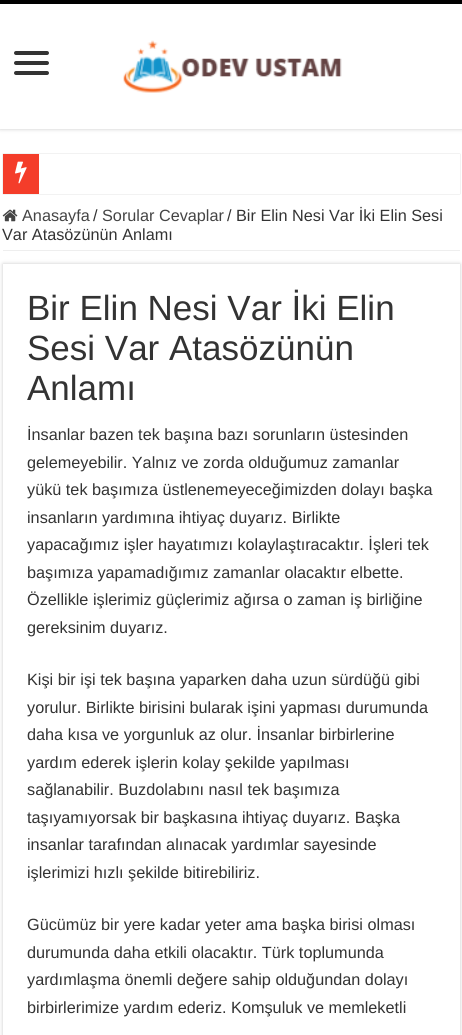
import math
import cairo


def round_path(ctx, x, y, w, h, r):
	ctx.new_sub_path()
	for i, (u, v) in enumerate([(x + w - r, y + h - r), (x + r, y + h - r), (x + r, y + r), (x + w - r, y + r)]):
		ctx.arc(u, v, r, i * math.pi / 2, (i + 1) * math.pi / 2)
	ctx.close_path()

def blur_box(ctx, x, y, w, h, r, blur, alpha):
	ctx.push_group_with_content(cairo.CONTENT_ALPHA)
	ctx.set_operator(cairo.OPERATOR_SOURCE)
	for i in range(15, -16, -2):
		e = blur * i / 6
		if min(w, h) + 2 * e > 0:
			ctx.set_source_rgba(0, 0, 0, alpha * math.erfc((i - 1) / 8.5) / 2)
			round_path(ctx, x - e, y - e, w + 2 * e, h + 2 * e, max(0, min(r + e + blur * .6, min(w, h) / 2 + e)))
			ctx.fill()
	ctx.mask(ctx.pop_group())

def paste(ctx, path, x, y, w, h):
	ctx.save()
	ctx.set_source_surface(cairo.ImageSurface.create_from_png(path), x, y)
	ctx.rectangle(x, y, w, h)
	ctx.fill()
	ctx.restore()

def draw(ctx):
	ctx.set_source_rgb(1, 1, 1)
	ctx.paint()
	ctx.set_source_rgb(0.792, 0.792, 0.792)
	blur_box(ctx, 0, 0, 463, 129, 0, 2, 1)
	ctx.set_source_rgb(1, 1, 1)
	ctx.rectangle(0, 4, 462, 125)
	ctx.fill()
	ctx.set_source_rgb(0, 0, 0)
	ctx.rectangle(0, 0, 462, 4)
	ctx.fill()
	ctx.set_source_rgb(0.2, 0.2, 0.2)
	round_path(ctx, 14, 51, 35, 4, 2)
	ctx.fill()
	round_path(ctx, 14, 61, 35, 4, 2)
	ctx.fill()
	round_path(ctx, 14, 71, 35, 4, 2)
	ctx.fill()
	paste(ctx, 'media/1.png', 123, 40, 219, 53)
	ctx.set_source_rgb(0.792, 0.792, 0.792)
	blur_box(ctx, 3, 154, 457, 40, 0, 0.5, 1)
	ctx.set_source_rgb(1, 1, 1)
	ctx.rectangle(39, 154, 421, 40)
	ctx.fill()
	ctx.set_source_rgb(0.957, 0.239, 0.165)
	ctx.rectangle(3, 154, 36, 40)
	ctx.fill()
	paste(ctx, 'media/2.png', 15, 161, 12, 23)
	ctx.set_source_rgb(0.933, 0.933, 0.933)
	ctx.rectangle(3, 250, 457, 1)
	ctx.fill()
	paste(ctx, 'media/3.png', 2, 209, 16, 13)
	ctx.select_font_face('Liberation Sans')
	ctx.set_font_size(16.25)
	ctx.set_source_rgb(0.267, 0.267, 0.267)
	ctx.move_to(22, 221)
	ctx.show_text('Anasayfa')
	ctx.set_source_rgb(0.2, 0.2, 0.2)
	ctx.move_to(93, 221)
	ctx.show_text('/')
	ctx.set_source_rgb(0.267, 0.267, 0.267)
	ctx.move_to(102, 221)
	ctx.show_text('Sorular Cevaplar')
	ctx.set_source_rgb(0.2, 0.2, 0.2)
	for x, y, s in [
		(227, 221, '/'),
		(236, 221, 'Bir Elin Nesi Var İki Elin Sesi'),
		(2, 240, 'Var Atasözünün Anlamı'),
	]:
		ctx.move_to(x, y)
		ctx.show_text(s)
	ctx.save()
	ctx.set_fill_rule(cairo.FILL_RULE_EVEN_ODD)
	ctx.new_path()
	ctx.move_to(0, 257)
	ctx.line_to(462, 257)
	ctx.line_to(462, 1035)
	ctx.line_to(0, 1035)
	ctx.close_path()
	ctx.move_to(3, 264)
	ctx.line_to(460, 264)
	ctx.line_to(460, 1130)
	ctx.line_to(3, 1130)
	ctx.close_path()
	ctx.clip()
	ctx.set_source_rgb(0.792, 0.792, 0.792)
	blur_box(ctx, 3, 264, 457, 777, 0, 2, 1)
	ctx.restore()
	ctx.set_font_size(35)
	for x, y, s in [
		(27, 320, 'Bir Elin Nesi Var İki Elin'),
		(27, 360, 'Sesi Var Atasözünün'),
		(27, 400, 'Anlamı'),
	]:
		ctx.move_to(x, y)
		ctx.show_text(s)
	ctx.set_font_size(16.25)
	for x, y, s in [
		(27, 440, 'İnsanlar bazen tek başına bazı sorunların üstesinden'),
		(27, 468, 'gelemeyebilir. Yalnız ve zorda olduğumuz zamanlar'),
		(27, 495, 'yükü tek başımıza üstlenemeyeceğimizden dolayı başka'),
		(27, 523, 'insanların yardımına ihtiyaç duyarız. Birlikte'),
		(27, 550, 'yapacağımız işler hayatımızı kolaylaştıracaktır. İşleri tek'),
		(27, 578, 'başımıza yapamadığımız zamanlar olacaktır elbette.'),
		(27, 605, 'Özellikle işlerimiz güçlerimiz ağırsa o zaman iş birliğine'),
		(27, 633, 'gereksinim duyarız.'),
		(27, 685, 'Kişi bir işi tek başına yaparken daha uzun sürdüğü gibi'),
		(27, 713, 'yorulur. Birlikte birisini bularak işini yapması durumunda'),
		(27, 740, 'daha kısa ve yorgunluk az olur. İnsanlar birbirlerine'),
		(27, 768, 'yardım ederek işlerin kolay şekilde yapılması'),
		(27, 795, 'sağlanabilir. Buzdolabını nasıl tek başımıza'),
		(27, 823, 'taşıyamıyorsak bir başkasına ihtiyaç duyarız. Başka'),
		(27, 850, 'insanlar tarafından alınacak yardımlar sayesinde'),
		(27, 878, 'işlerimizi hızlı şekilde bitirebiliriz.'),
		(27, 930, 'Gücümüz bir yere kadar yeter ama başka birisi olması'),
		(27, 958, 'durumunda daha etkili olacaktır. Türk toplumunda'),
		(27, 985, 'yardımlaşma önemli değere sahip olduğundan dolayı'),
		(27, 1013, 'birbirlerimize yardım ederiz. Komşuluk ve memleketli'),
	]:
		ctx.move_to(x, y)
		ctx.show_text(s)


surface = cairo.ImageSurface(cairo.FORMAT_RGB24, 462, 1035)
ctx = cairo.Context(surface)
options = cairo.FontOptions()
options.set_hint_metrics(cairo.HINT_METRICS_OFF)
options.set_hint_style(cairo.HINT_STYLE_NONE)
ctx.set_font_options(options)
ctx.set_miter_limit(4)
draw(ctx)
surface.write_to_png('image.png')
